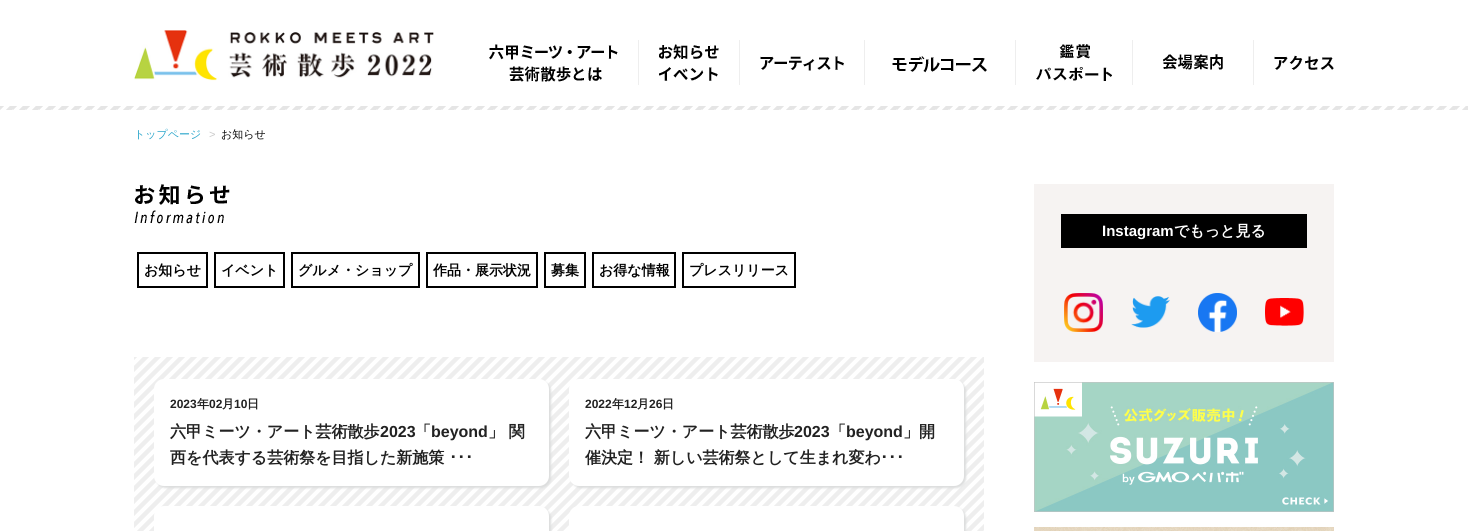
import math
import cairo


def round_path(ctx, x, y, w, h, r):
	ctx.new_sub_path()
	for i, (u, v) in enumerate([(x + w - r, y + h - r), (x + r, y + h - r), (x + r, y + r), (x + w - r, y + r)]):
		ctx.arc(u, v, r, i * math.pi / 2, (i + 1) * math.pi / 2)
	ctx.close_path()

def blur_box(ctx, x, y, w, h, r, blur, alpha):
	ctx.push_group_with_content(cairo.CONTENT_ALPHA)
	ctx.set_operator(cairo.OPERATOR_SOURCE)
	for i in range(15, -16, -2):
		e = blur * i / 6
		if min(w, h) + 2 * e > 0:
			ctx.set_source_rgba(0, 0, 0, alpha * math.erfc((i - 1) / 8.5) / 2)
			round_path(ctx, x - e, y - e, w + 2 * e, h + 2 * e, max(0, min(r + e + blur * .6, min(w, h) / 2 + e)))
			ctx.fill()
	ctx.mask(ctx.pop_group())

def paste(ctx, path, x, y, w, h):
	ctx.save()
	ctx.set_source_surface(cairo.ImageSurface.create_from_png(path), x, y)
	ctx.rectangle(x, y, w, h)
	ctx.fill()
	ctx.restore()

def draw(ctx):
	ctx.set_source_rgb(1, 1, 1)
	ctx.paint()
	paste(ctx, 'media/1.png', 134, 30, 300, 51)
	paste(ctx, 'media/2.png', 489, 44, 129, 38)
	ctx.set_source_rgb(0.933, 0.933, 0.933)
	ctx.rectangle(638, 40, 1, 45)
	ctx.fill()
	paste(ctx, 'media/3.png', 659, 44, 60, 37)
	ctx.rectangle(739, 40, 1, 45)
	ctx.fill()
	paste(ctx, 'media/4.png', 760, 56, 84, 15)
	ctx.rectangle(864, 40, 1, 45)
	ctx.fill()
	paste(ctx, 'media/5.png', 892, 56, 95, 17)
	ctx.rectangle(1015, 40, 1, 45)
	ctx.fill()
	paste(ctx, 'media/6.png', 1036, 44, 76, 37)
	ctx.rectangle(1132, 40, 1, 45)
	ctx.fill()
	paste(ctx, 'media/7.png', 1163, 54, 60, 16)
	ctx.rectangle(1253, 40, 1, 45)
	ctx.fill()
	paste(ctx, 'media/8.png', 1274, 55, 60, 15)
	paste(ctx, 'media/9.png', 0, 106, 1468, 4)
	ctx.select_font_face('WenQuanYi Zen Hei Medium')
	ctx.set_font_size(11)
	ctx.set_source_rgb(0.169, 0.651, 0.796)
	ctx.move_to(134, 138)
	ctx.show_text('トップページ')
	ctx.select_font_face('Liberation Sans')
	ctx.set_source_rgb(0.792, 0.792, 0.792)
	ctx.move_to(209, 138)
	ctx.show_text('>')
	ctx.select_font_face('WenQuanYi Zen Hei Medium')
	ctx.set_source_rgb(0.039, 0.039, 0.039)
	ctx.move_to(221, 138)
	ctx.show_text('お知らせ')
	ctx.set_source_rgb(0.961, 0.953, 0.949)
	ctx.rectangle(1034, 184, 300, 178)
	ctx.fill()
	ctx.set_source_rgb(0, 0, 0)
	ctx.rectangle(1061, 214, 246, 34)
	ctx.fill()
	ctx.select_font_face('Liberation Sans', cairo.FONT_SLANT_NORMAL, cairo.FONT_WEIGHT_BOLD)
	ctx.set_font_size(15)
	ctx.set_source_rgb(1, 1, 1)
	ctx.move_to(1102, 236)
	ctx.show_text('Instagram')
	ctx.select_font_face('WenQuanYi Zen Hei', cairo.FONT_SLANT_NORMAL, cairo.FONT_WEIGHT_BOLD)
	ctx.move_to(1174, 236)
	ctx.show_text('でもっと見る')
	paste(ctx, 'media/10.png', 1064, 293, 39, 39)
	paste(ctx, 'media/11.png', 1131, 296, 39, 32)
	paste(ctx, 'media/12.png', 1198, 293, 39, 39)
	paste(ctx, 'media/13.png', 1265, 298, 39, 28)
	paste(ctx, 'media/14.png', 1034, 382, 300, 130)
	paste(ctx, 'media/15.png', 1034, 527, 300, 4)
	paste(ctx, 'media/16.png', 134, 184, 96, 40)
	ctx.rectangle(138, 253, 69, 34)
	ctx.set_source_rgb(0, 0, 0)
	ctx.stroke()
	ctx.set_font_size(14)
	ctx.move_to(144, 275)
	ctx.show_text('お知らせ')
	ctx.rectangle(215, 253, 69, 34)
	ctx.stroke()
	ctx.move_to(221, 275)
	ctx.show_text('イベント')
	ctx.rectangle(292, 253, 127, 34)
	ctx.stroke()
	ctx.move_to(298, 275)
	ctx.show_text('グルメ・ショップ')
	ctx.rectangle(427, 253, 110, 34)
	ctx.stroke()
	ctx.move_to(433, 275)
	ctx.show_text('作品・展示状況')
	ctx.rectangle(545, 253, 40, 34)
	ctx.stroke()
	ctx.move_to(551, 275)
	ctx.show_text('募集')
	ctx.rectangle(593, 253, 82, 34)
	ctx.stroke()
	ctx.move_to(599, 275)
	ctx.show_text('お得な情報')
	ctx.rectangle(683, 253, 112, 34)
	ctx.stroke()
	ctx.move_to(689, 275)
	ctx.show_text('プレスリリース')
	paste(ctx, 'media/17.png', 134, 357, 850, 174)
	ctx.set_source_rgb(0.863, 0.867, 0.867)
	blur_box(ctx, 156, 381, 395, 107, 10, 1, 1)
	ctx.set_source_rgb(1, 1, 1)
	round_path(ctx, 154, 379, 395, 107, 10)
	ctx.fill()
	ctx.select_font_face('Liberation Sans', cairo.FONT_SLANT_NORMAL, cairo.FONT_WEIGHT_BOLD)
	ctx.set_font_size(12)
	ctx.set_source_rgb(0.133, 0.133, 0.133)
	ctx.move_to(170, 408)
	ctx.show_text('2023')
	ctx.select_font_face('WenQuanYi Zen Hei', cairo.FONT_SLANT_NORMAL, cairo.FONT_WEIGHT_BOLD)
	ctx.move_to(197, 408)
	ctx.show_text('年')
	ctx.select_font_face('Liberation Sans', cairo.FONT_SLANT_NORMAL, cairo.FONT_WEIGHT_BOLD)
	ctx.move_to(209, 408)
	ctx.show_text('02')
	ctx.select_font_face('WenQuanYi Zen Hei', cairo.FONT_SLANT_NORMAL, cairo.FONT_WEIGHT_BOLD)
	ctx.move_to(222, 408)
	ctx.show_text('月')
	ctx.select_font_face('Liberation Sans', cairo.FONT_SLANT_NORMAL, cairo.FONT_WEIGHT_BOLD)
	ctx.move_to(234, 408)
	ctx.show_text('10')
	ctx.select_font_face('WenQuanYi Zen Hei', cairo.FONT_SLANT_NORMAL, cairo.FONT_WEIGHT_BOLD)
	ctx.move_to(247, 408)
	ctx.show_text('日')
	ctx.set_font_size(16)
	ctx.move_to(170, 437)
	ctx.show_text('六甲ミーツ・アート芸術散歩')
	ctx.select_font_face('Liberation Sans', cairo.FONT_SLANT_NORMAL, cairo.FONT_WEIGHT_BOLD)
	ctx.move_to(380, 437)
	ctx.show_text('2023')
	ctx.select_font_face('WenQuanYi Zen Hei', cairo.FONT_SLANT_NORMAL, cairo.FONT_WEIGHT_BOLD)
	ctx.move_to(415, 437)
	ctx.show_text('「')
	ctx.select_font_face('Liberation Sans', cairo.FONT_SLANT_NORMAL, cairo.FONT_WEIGHT_BOLD)
	ctx.move_to(431, 437)
	ctx.show_text('beyond')
	ctx.select_font_face('WenQuanYi Zen Hei', cairo.FONT_SLANT_NORMAL, cairo.FONT_WEIGHT_BOLD)
	ctx.move_to(488, 437)
	ctx.show_text('」 関')
	ctx.move_to(170, 463)
	ctx.show_text('西を代表する芸術祭を目指した新施策')
	ctx.select_font_face('IPAGothic', cairo.FONT_SLANT_NORMAL, cairo.FONT_WEIGHT_BOLD)
	ctx.move_to(449, 463)
	ctx.show_text('･･･')
	ctx.set_source_rgb(0.863, 0.867, 0.867)
	blur_box(ctx, 571, 381, 395, 107, 10, 1, 1)
	ctx.set_source_rgb(1, 1, 1)
	round_path(ctx, 569, 379, 395, 107, 10)
	ctx.fill()
	ctx.select_font_face('Liberation Sans', cairo.FONT_SLANT_NORMAL, cairo.FONT_WEIGHT_BOLD)
	ctx.set_font_size(12)
	ctx.set_source_rgb(0.133, 0.133, 0.133)
	ctx.move_to(585, 408)
	ctx.show_text('2022')
	ctx.select_font_face('WenQuanYi Zen Hei', cairo.FONT_SLANT_NORMAL, cairo.FONT_WEIGHT_BOLD)
	ctx.move_to(612, 408)
	ctx.show_text('年')
	ctx.select_font_face('Liberation Sans', cairo.FONT_SLANT_NORMAL, cairo.FONT_WEIGHT_BOLD)
	ctx.move_to(624, 408)
	ctx.show_text('12')
	ctx.select_font_face('WenQuanYi Zen Hei', cairo.FONT_SLANT_NORMAL, cairo.FONT_WEIGHT_BOLD)
	ctx.move_to(637, 408)
	ctx.show_text('月')
	ctx.select_font_face('Liberation Sans', cairo.FONT_SLANT_NORMAL, cairo.FONT_WEIGHT_BOLD)
	ctx.move_to(649, 408)
	ctx.show_text('26')
	ctx.select_font_face('WenQuanYi Zen Hei', cairo.FONT_SLANT_NORMAL, cairo.FONT_WEIGHT_BOLD)
	ctx.move_to(662, 408)
	ctx.show_text('日')
	ctx.set_font_size(16)
	ctx.move_to(585, 437)
	ctx.show_text('六甲ミーツ・アート芸術散歩')
	ctx.select_font_face('Liberation Sans', cairo.FONT_SLANT_NORMAL, cairo.FONT_WEIGHT_BOLD)
	ctx.move_to(794, 437)
	ctx.show_text('2023')
	ctx.select_font_face('WenQuanYi Zen Hei', cairo.FONT_SLANT_NORMAL, cairo.FONT_WEIGHT_BOLD)
	ctx.move_to(830, 437)
	ctx.show_text('「')
	ctx.select_font_face('Liberation Sans', cairo.FONT_SLANT_NORMAL, cairo.FONT_WEIGHT_BOLD)
	ctx.move_to(846, 437)
	ctx.show_text('beyond')
	ctx.select_font_face('WenQuanYi Zen Hei', cairo.FONT_SLANT_NORMAL, cairo.FONT_WEIGHT_BOLD)
	ctx.move_to(903, 437)
	ctx.show_text('」開')
	ctx.move_to(585, 463)
	ctx.show_text('催決定！ 新しい芸術祭として生まれ変わ')
	ctx.select_font_face('IPAGothic', cairo.FONT_SLANT_NORMAL, cairo.FONT_WEIGHT_BOLD)
	ctx.move_to(880, 463)
	ctx.show_text('･･･')
	ctx.set_source_rgb(0.863, 0.867, 0.867)
	blur_box(ctx, 156, 508, 395, 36, 10, 1, 1)
	ctx.set_source_rgb(1, 1, 1)
	round_path(ctx, 154, 506, 395, 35, 10)
	ctx.fill()
	ctx.set_source_rgb(0.863, 0.867, 0.867)
	blur_box(ctx, 571, 508, 395, 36, 10, 1, 1)
	ctx.set_source_rgb(1, 1, 1)
	round_path(ctx, 569, 506, 395, 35, 10)
	ctx.fill()


surface = cairo.ImageSurface(cairo.FORMAT_RGB24, 1468, 531)
ctx = cairo.Context(surface)
options = cairo.FontOptions()
options.set_hint_metrics(cairo.HINT_METRICS_OFF)
options.set_hint_style(cairo.HINT_STYLE_NONE)
ctx.set_font_options(options)
ctx.set_miter_limit(4)
draw(ctx)
surface.write_to_png('image.png')
